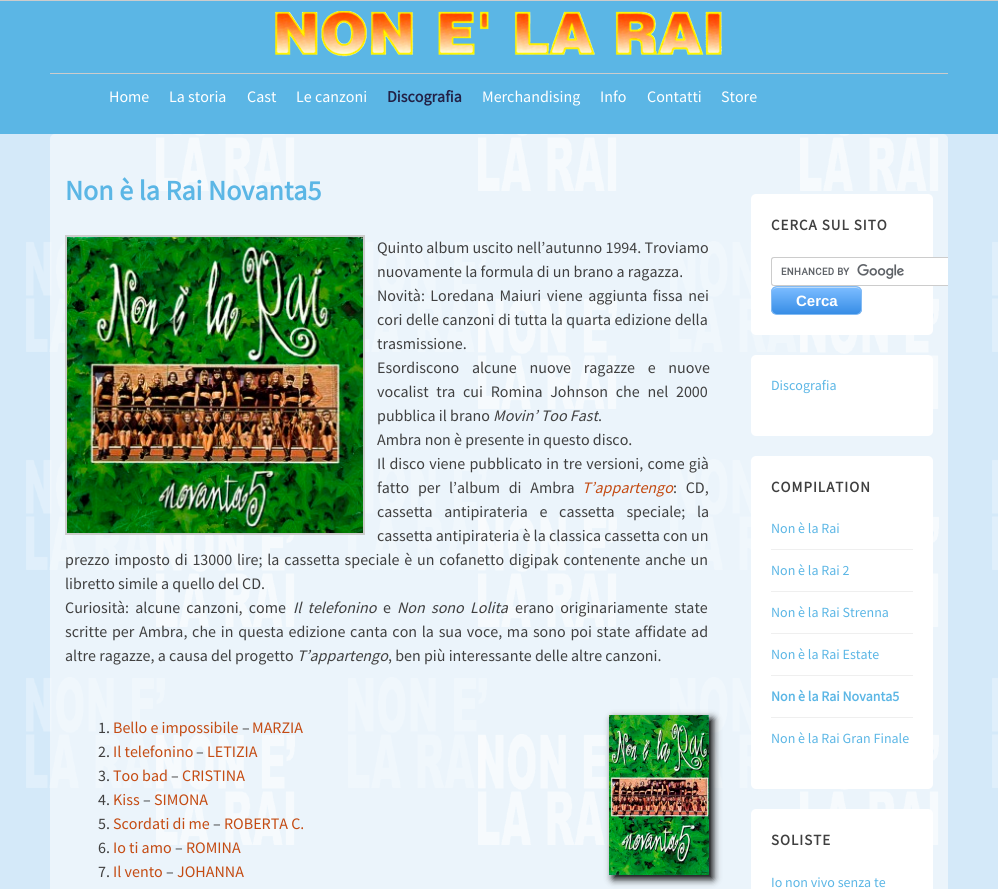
import math
import cairo


def write_spaced(ctx, x, y, s, letter, word):
	ctx.move_to(x, y)
	for ch in s:
		ctx.show_text(ch)
		ctx.rel_move_to(letter + word * (ch == ' '), 0)

def round_path(ctx, x, y, w, h, r):
	ctx.new_sub_path()
	for i, (u, v) in enumerate([(x + w - r, y + h - r), (x + r, y + h - r), (x + r, y + r), (x + w - r, y + r)]):
		ctx.arc(u, v, r, i * math.pi / 2, (i + 1) * math.pi / 2)
	ctx.close_path()

def blur_box(ctx, x, y, w, h, r, blur, alpha):
	ctx.push_group_with_content(cairo.CONTENT_ALPHA)
	ctx.set_operator(cairo.OPERATOR_SOURCE)
	for i in range(15, -16, -2):
		e = blur * i / 6
		if min(w, h) + 2 * e > 0:
			ctx.set_source_rgba(0, 0, 0, alpha * math.erfc((i - 1) / 8.5) / 2)
			round_path(ctx, x - e, y - e, w + 2 * e, h + 2 * e, max(0, min(r + e + blur * .6, min(w, h) / 2 + e)))
			ctx.fill()
	ctx.mask(ctx.pop_group())

def paste(ctx, path, x, y, w, h):
	ctx.save()
	ctx.set_source_surface(cairo.ImageSurface.create_from_png(path), x, y)
	ctx.rectangle(x, y, w, h)
	ctx.fill()
	ctx.restore()

def draw(ctx):
	ctx.set_source_rgb(1, 1, 1)
	ctx.paint()
	paste(ctx, 'media/1.png', 0, 134, 998, 755)
	ctx.set_source_rgb(0.357, 0.714, 0.898)
	ctx.rectangle(0, 1, 998, 133)
	ctx.fill()
	ctx.set_source_rgb(0.8, 0.8, 0.8)
	ctx.rectangle(0, 0, 998, 1)
	ctx.rectangle(50, 73, 898, 1)
	ctx.fill()
	paste(ctx, 'media/2.png', 275, 11, 447, 46)
	ctx.select_font_face('Source Sans Pro')
	ctx.set_font_size(16)
	ctx.set_source_rgb(1, 1, 1)
	for x, y, s in [
		(109, 102, 'Home'),
		(169, 102, 'La storia'),
		(247, 102, 'Cast'),
		(296, 102, 'Le canzoni'),
	]:
		ctx.move_to(x, y)
		ctx.show_text(s)
	ctx.select_font_face('Source Sans Pro', cairo.FONT_SLANT_NORMAL, cairo.FONT_WEIGHT_BOLD)
	ctx.set_source_rgb(0.133, 0.129, 0.275)
	ctx.move_to(387, 102)
	ctx.show_text('Discografia')
	ctx.select_font_face('Source Sans Pro')
	ctx.set_source_rgb(1, 1, 1)
	for x, y, s in [
		(482, 102, 'Merchandising'),
		(600, 102, 'Info'),
		(647, 102, 'Contatti'),
		(721, 102, 'Store'),
	]:
		ctx.move_to(x, y)
		ctx.show_text(s)
	ctx.set_source_rgba(0.988, 0.988, 0.988, 0.55)
	round_path(ctx, 50, 134, 898, 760, 5)
	ctx.fill()
	ctx.select_font_face('Source Sans Pro', cairo.FONT_SLANT_NORMAL, cairo.FONT_WEIGHT_BOLD)
	ctx.set_font_size(28)
	ctx.set_source_rgb(0.357, 0.714, 0.898)
	ctx.move_to(65, 200)
	ctx.show_text('Non è la Rai Novanta5')
	ctx.rectangle(66, 236, 298, 298)
	ctx.set_source_rgb(0.8, 0.8, 0.8)
	ctx.stroke()
	paste(ctx, 'media/3.png', 67, 237, 296, 296)
	ctx.select_font_face('Source Sans Pro')
	ctx.set_font_size(16)
	ctx.set_source_rgb(0.251, 0.251, 0.251)
	ctx.move_to(377, 253)
	ctx.show_text('Quinto album uscito nell’autunno 1994. Troviamo')
	ctx.move_to(377, 277)
	ctx.show_text('nuovamente la formula di un brano a ragazza.')
	write_spaced(ctx, 377, 301, 'Novità: Loredana Maiuri viene aggiunta fissa nei', 0, 2.25)
	write_spaced(ctx, 377, 325, 'cori delle canzoni di tutta la quarta edizione della', 0, 0.25)
	ctx.move_to(377, 349)
	ctx.show_text('trasmissione.')
	write_spaced(ctx, 377, 373, 'Esordiscono alcune nuove ragazze e nuove', 0, 9.5)
	write_spaced(ctx, 377, 397, 'vocalist tra cui Romina Johnson che nel 2000', 0, 4.5)
	ctx.move_to(377, 421)
	ctx.show_text('pubblica il brano')
	ctx.select_font_face('Source Sans Pro', cairo.FONT_SLANT_ITALIC)
	ctx.move_to(493, 421)
	ctx.show_text('Movin’ Too Fast')
	ctx.select_font_face('Source Sans Pro')
	ctx.move_to(598, 421)
	ctx.show_text('.')
	ctx.move_to(377, 445)
	ctx.show_text('Ambra non è presente in questo disco.')
	write_spaced(ctx, 377, 469, 'Il disco viene pubblicato in tre versioni, come già', 0, 1)
	write_spaced(ctx, 377, 493, 'fatto per l’album di Ambra', 0, 5.5)
	ctx.select_font_face('Source Sans Pro', cairo.FONT_SLANT_ITALIC)
	ctx.set_source_rgb(0.769, 0.294, 0.071)
	ctx.move_to(582, 493)
	ctx.show_text('T’appartengo')
	ctx.select_font_face('Source Sans Pro')
	ctx.set_source_rgb(0.251, 0.251, 0.251)
	write_spaced(ctx, 673, 493, ': CD,', 0, 5.5)
	write_spaced(ctx, 377, 517, 'cassetta antipirateria e cassetta speciale; la', 0, 8.5)
	ctx.move_to(377, 541)
	ctx.show_text('cassetta antipirateria è la classica cassetta con un')
	write_spaced(ctx, 65, 565, 'prezzo imposto di 13000 lire; la cassetta speciale è un cofanetto digipak contenente anche un', 0, 1.6)
	ctx.move_to(65, 589)
	ctx.show_text('libretto simile a quello del CD.')
	write_spaced(ctx, 65, 613, 'Curiosità: alcune canzoni, come', 0, 3)
	ctx.select_font_face('Source Sans Pro', cairo.FONT_SLANT_ITALIC)
	write_spaced(ctx, 293, 613, 'Il telefonino', 0, 3)
	ctx.select_font_face('Source Sans Pro')
	ctx.move_to(383, 613)
	ctx.show_text('e')
	ctx.select_font_face('Source Sans Pro', cairo.FONT_SLANT_ITALIC)
	write_spaced(ctx, 397, 613, 'Non sono Lolita', 0, 3)
	ctx.select_font_face('Source Sans Pro')
	write_spaced(ctx, 515, 613, 'erano originariamente state', 0, 3)
	write_spaced(ctx, 65, 637, 'scritte per Ambra, che in questa edizione canta con la sua voce, ma sono poi state affidate ad', 0, 1.5)
	ctx.move_to(65, 661)
	ctx.show_text('altre ragazze, a causa del progetto')
	ctx.select_font_face('Source Sans Pro', cairo.FONT_SLANT_ITALIC)
	ctx.move_to(297, 661)
	ctx.show_text('T’appartengo')
	ctx.select_font_face('Source Sans Pro')
	ctx.move_to(388, 661)
	ctx.show_text(', ben più interessante delle altre canzoni.')
	ctx.move_to(98, 733)
	ctx.show_text('1.')
	ctx.set_source_rgb(0.769, 0.294, 0.071)
	ctx.move_to(113, 733)
	ctx.show_text('Bello e impossibile')
	ctx.set_source_rgb(0.251, 0.251, 0.251)
	ctx.move_to(242, 733)
	ctx.show_text('–')
	ctx.set_source_rgb(0.769, 0.294, 0.071)
	ctx.move_to(252, 733)
	ctx.show_text('MARZIA')
	ctx.set_source_rgb(0.251, 0.251, 0.251)
	ctx.move_to(98, 757)
	ctx.show_text('2.')
	ctx.set_source_rgb(0.769, 0.294, 0.071)
	ctx.move_to(113, 757)
	ctx.show_text('Il telefonino')
	ctx.set_source_rgb(0.251, 0.251, 0.251)
	ctx.move_to(196, 757)
	ctx.show_text('–')
	ctx.set_source_rgb(0.769, 0.294, 0.071)
	ctx.move_to(207, 757)
	ctx.show_text('LETIZIA')
	ctx.set_source_rgb(0.251, 0.251, 0.251)
	ctx.move_to(98, 781)
	ctx.show_text('3.')
	ctx.set_source_rgb(0.769, 0.294, 0.071)
	ctx.move_to(113, 781)
	ctx.show_text('Too bad')
	ctx.set_source_rgb(0.251, 0.251, 0.251)
	ctx.move_to(171, 781)
	ctx.show_text('–')
	ctx.set_source_rgb(0.769, 0.294, 0.071)
	ctx.move_to(182, 781)
	ctx.show_text('CRISTINA')
	ctx.set_source_rgb(0.251, 0.251, 0.251)
	ctx.move_to(98, 805)
	ctx.show_text('4.')
	ctx.set_source_rgb(0.769, 0.294, 0.071)
	ctx.move_to(113, 805)
	ctx.show_text('Kiss')
	ctx.set_source_rgb(0.251, 0.251, 0.251)
	ctx.move_to(143, 805)
	ctx.show_text('–')
	ctx.set_source_rgb(0.769, 0.294, 0.071)
	ctx.move_to(154, 805)
	ctx.show_text('SIMONA')
	ctx.set_source_rgb(0.251, 0.251, 0.251)
	ctx.move_to(98, 829)
	ctx.show_text('5.')
	ctx.set_source_rgb(0.769, 0.294, 0.071)
	ctx.move_to(113, 829)
	ctx.show_text('Scordati di me')
	ctx.set_source_rgb(0.251, 0.251, 0.251)
	ctx.move_to(213, 829)
	ctx.show_text('–')
	ctx.set_source_rgb(0.769, 0.294, 0.071)
	ctx.move_to(224, 829)
	ctx.show_text('ROBERTA C.')
	ctx.set_source_rgb(0.251, 0.251, 0.251)
	ctx.move_to(98, 853)
	ctx.show_text('6.')
	ctx.set_source_rgb(0.769, 0.294, 0.071)
	ctx.move_to(113, 853)
	ctx.show_text('Io ti amo')
	ctx.set_source_rgb(0.251, 0.251, 0.251)
	ctx.move_to(175, 853)
	ctx.show_text('–')
	ctx.set_source_rgb(0.769, 0.294, 0.071)
	ctx.move_to(186, 853)
	ctx.show_text('ROMINA')
	ctx.set_source_rgb(0.251, 0.251, 0.251)
	ctx.move_to(98, 877)
	ctx.show_text('7.')
	ctx.set_source_rgb(0.769, 0.294, 0.071)
	ctx.move_to(113, 877)
	ctx.show_text('Il vento')
	ctx.set_source_rgb(0.251, 0.251, 0.251)
	ctx.move_to(166, 877)
	ctx.show_text('–')
	ctx.set_source_rgb(0.769, 0.294, 0.071)
	ctx.move_to(177, 877)
	ctx.show_text('JOHANNA')
	ctx.set_source_rgb(0, 0, 0)
	blur_box(ctx, 613, 719, 100, 160, 0, 4, 1)
	paste(ctx, 'media/4.png', 609, 715, 100, 160)
	ctx.set_source_rgb(1, 1, 1)
	round_path(ctx, 751, 194, 182, 141, 5)
	ctx.fill()
	ctx.select_font_face('Source Sans Pro', cairo.FONT_SLANT_NORMAL, cairo.FONT_WEIGHT_BOLD)
	ctx.set_font_size(15)
	ctx.set_source_rgb(0.251, 0.251, 0.251)
	write_spaced(ctx, 771, 230, 'CERCA SUL SITO', 1, 0)
	ctx.set_source_rgb(1, 1, 1)
	ctx.new_path()
	ctx.move_to(774, 257)
	ctx.line_to(948, 257)
	ctx.line_to(948, 286)
	ctx.line_to(774, 286)
	ctx.curve_to(772.5, 286, 771, 284.5, 771, 283)
	ctx.line_to(771, 260)
	ctx.curve_to(771, 258.5, 772.5, 257, 774, 257)
	ctx.close_path()
	ctx.fill()
	paste(ctx, 'media/5.png', 781, 264, 123, 15)
	ctx.set_source_rgb(0.8, 0.8, 0.8)
	ctx.new_path()
	ctx.move_to(774, 257)
	ctx.curve_to(772, 257, 771, 258, 771, 260)
	ctx.line_to(771, 283)
	ctx.curve_to(771, 285, 772, 286, 774, 286)
	ctx.line_to(948, 286)
	ctx.line_to(948, 285)
	ctx.line_to(774, 285)
	ctx.curve_to(773, 285, 772, 284, 772, 283)
	ctx.line_to(772, 260)
	ctx.curve_to(772, 259, 773, 258, 774, 258)
	ctx.line_to(948, 258)
	ctx.line_to(948, 257)
	ctx.close_path()
	ctx.fill()
	ctx.save()
	round_path(ctx, 771, 286, 91, 29, 6)
	ctx.clip()
	gradient = cairo.LinearGradient(817, 287, 817, 314)
	gradient.add_color_stop_rgba(0.05, 0.475, 0.733, 1, 1)
	gradient.add_color_stop_rgba(1, 0.216, 0.553, 0.898, 1)
	ctx.set_source(gradient)
	ctx.rectangle(771, 287, 91, 27)
	ctx.fill()
	ctx.restore()
	ctx.set_source_rgb(0.733, 0.855, 0.969)
	ctx.new_path()
	ctx.move_to(777, 288)
	ctx.line_to(856, 288)
	ctx.curve_to(859, 288, 861, 290, 861, 293)
	ctx.curve_to(861, 284, 848, 287, 843, 287)
	ctx.line_to(790, 287)
	ctx.curve_to(785, 287, 772, 284, 772, 293)
	ctx.curve_to(772, 290, 774, 288, 777, 288)
	ctx.close_path()
	ctx.fill()
	round_path(ctx, 771.5, 286.5, 90, 28, 5.5)
	ctx.set_source_rgb(0.518, 0.733, 0.953)
	ctx.set_line_width(1)
	ctx.stroke()
	ctx.select_font_face('Liberation Sans', cairo.FONT_SLANT_NORMAL, cairo.FONT_WEIGHT_BOLD)
	ctx.set_source_rgb(1, 1, 1)
	ctx.move_to(796, 306)
	ctx.show_text('Cerca')
	round_path(ctx, 751, 355, 182, 81, 5)
	ctx.fill()
	ctx.select_font_face('Source Sans Pro')
	ctx.set_font_size(14)
	ctx.set_source_rgb(0.357, 0.714, 0.898)
	ctx.move_to(771, 390)
	ctx.show_text('Discografia')
	ctx.set_source_rgb(1, 1, 1)
	round_path(ctx, 751, 456, 182, 333, 5)
	ctx.fill()
	ctx.select_font_face('Source Sans Pro', cairo.FONT_SLANT_NORMAL, cairo.FONT_WEIGHT_BOLD)
	ctx.set_font_size(15)
	ctx.set_source_rgb(0.251, 0.251, 0.251)
	write_spaced(ctx, 771, 492, 'COMPILATION', 1, 0)
	ctx.set_source_rgb(0.937, 0.937, 0.937)
	ctx.rectangle(771, 549, 142, 1)
	ctx.fill()
	ctx.select_font_face('Source Sans Pro')
	ctx.set_font_size(14)
	ctx.set_source_rgb(0.357, 0.714, 0.898)
	ctx.move_to(771, 533)
	ctx.show_text('Non è la Rai')
	ctx.set_source_rgb(0.937, 0.937, 0.937)
	ctx.rectangle(771, 591, 142, 1)
	ctx.fill()
	ctx.set_source_rgb(0.357, 0.714, 0.898)
	ctx.move_to(771, 575)
	ctx.show_text('Non è la Rai 2')
	ctx.set_source_rgb(0.937, 0.937, 0.937)
	ctx.rectangle(771, 633, 142, 1)
	ctx.fill()
	ctx.set_source_rgb(0.357, 0.714, 0.898)
	ctx.move_to(771, 617)
	ctx.show_text('Non è la Rai Strenna')
	ctx.set_source_rgb(0.937, 0.937, 0.937)
	ctx.rectangle(771, 675, 142, 1)
	ctx.fill()
	ctx.set_source_rgb(0.357, 0.714, 0.898)
	ctx.move_to(771, 659)
	ctx.show_text('Non è la Rai Estate')
	ctx.set_source_rgb(0.937, 0.937, 0.937)
	ctx.rectangle(771, 717, 142, 1)
	ctx.fill()
	ctx.select_font_face('Source Sans Pro', cairo.FONT_SLANT_NORMAL, cairo.FONT_WEIGHT_BOLD)
	ctx.set_source_rgb(0.357, 0.714, 0.898)
	ctx.move_to(771, 701)
	ctx.show_text('Non è la Rai Novanta5')
	ctx.select_font_face('Source Sans Pro')
	ctx.move_to(771, 743)
	ctx.show_text('Non è la Rai Gran Finale')
	ctx.set_source_rgb(1, 1, 1)
	round_path(ctx, 751, 809, 182, 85, 5)
	ctx.fill()
	ctx.select_font_face('Source Sans Pro', cairo.FONT_SLANT_NORMAL, cairo.FONT_WEIGHT_BOLD)
	ctx.set_font_size(15)
	ctx.set_source_rgb(0.251, 0.251, 0.251)
	write_spaced(ctx, 771, 845, 'SOLISTE', 1, 0)
	ctx.select_font_face('Source Sans Pro')
	ctx.set_font_size(14)
	ctx.set_source_rgb(0.357, 0.714, 0.898)
	ctx.move_to(771, 887)
	ctx.show_text('Io non vivo senza te')


surface = cairo.ImageSurface(cairo.FORMAT_RGB24, 998, 889)
ctx = cairo.Context(surface)
options = cairo.FontOptions()
options.set_hint_metrics(cairo.HINT_METRICS_OFF)
options.set_hint_style(cairo.HINT_STYLE_NONE)
ctx.set_font_options(options)
ctx.set_miter_limit(4)
draw(ctx)
surface.write_to_png('image.png')
